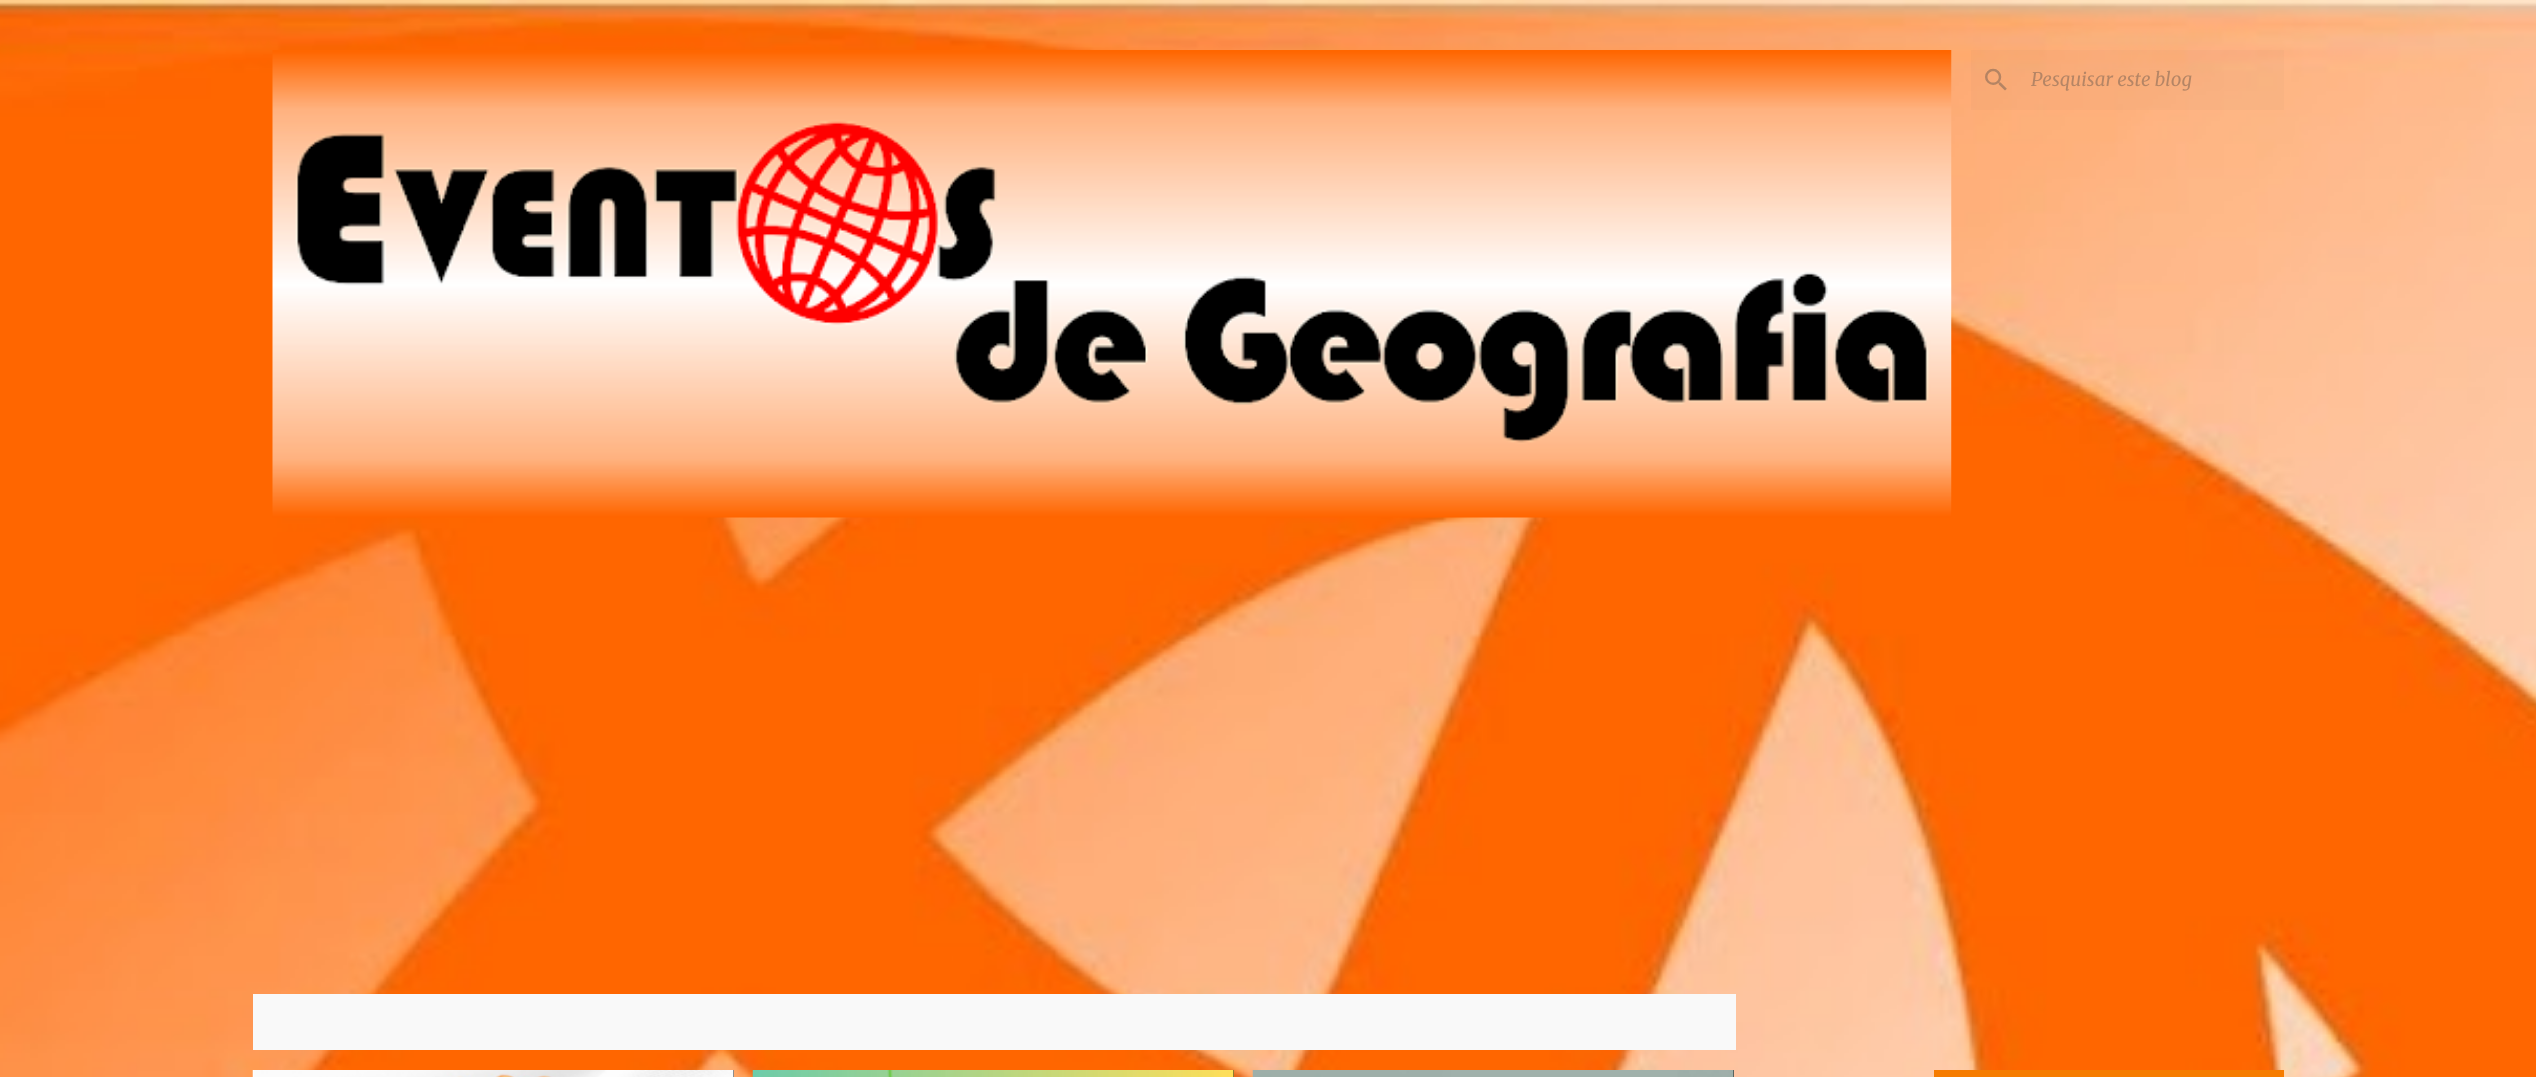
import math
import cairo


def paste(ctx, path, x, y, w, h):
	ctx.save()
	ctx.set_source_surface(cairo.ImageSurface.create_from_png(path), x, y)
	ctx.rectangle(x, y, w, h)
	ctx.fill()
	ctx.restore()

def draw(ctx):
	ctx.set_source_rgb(1, 1, 1)
	ctx.paint()
	paste(ctx, 'media/1.png', 0, 0, 2536, 1077)
	paste(ctx, 'media/2.png', 272, 50, 1680, 468)
	ctx.set_source_rgba(0.267, 0.267, 0.267, 0.03)
	ctx.rectangle(1971, 50, 313, 60)
	ctx.fill()
	paste(ctx, 'media/3.png', 1985, 68, 22, 23)
	ctx.select_font_face('Merriweather Light', cairo.FONT_SLANT_ITALIC)
	ctx.set_font_size(18.75)
	ctx.set_source_rgb(0.71, 0.522, 0.396)
	ctx.move_to(2031, 86)
	ctx.show_text('Pesquisar este blog')
	ctx.set_source_rgb(0.976, 0.976, 0.976)
	ctx.rectangle(253, 994, 1483, 56)
	ctx.fill()
	ctx.set_source_rgb(0, 0, 0)
	ctx.rectangle(733, 1070, 1, 7)
	ctx.fill()
	paste(ctx, 'media/4.png', 252, 1070, 482, 7)
	ctx.rectangle(1233, 1070, 1, 7)
	ctx.fill()
	paste(ctx, 'media/5.png', 752, 1070, 482, 7)
	ctx.rectangle(1733, 1070, 1, 7)
	ctx.fill()
	paste(ctx, 'media/6.png', 1252, 1070, 482, 7)
	ctx.set_source_rgb(0.961, 0.486, 0)
	ctx.rectangle(1934, 1070, 350, 7)
	ctx.fill()


surface = cairo.ImageSurface(cairo.FORMAT_RGB24, 2536, 1077)
ctx = cairo.Context(surface)
options = cairo.FontOptions()
options.set_hint_metrics(cairo.HINT_METRICS_OFF)
options.set_hint_style(cairo.HINT_STYLE_NONE)
ctx.set_font_options(options)
ctx.set_miter_limit(4)
draw(ctx)
surface.write_to_png('image.png')
